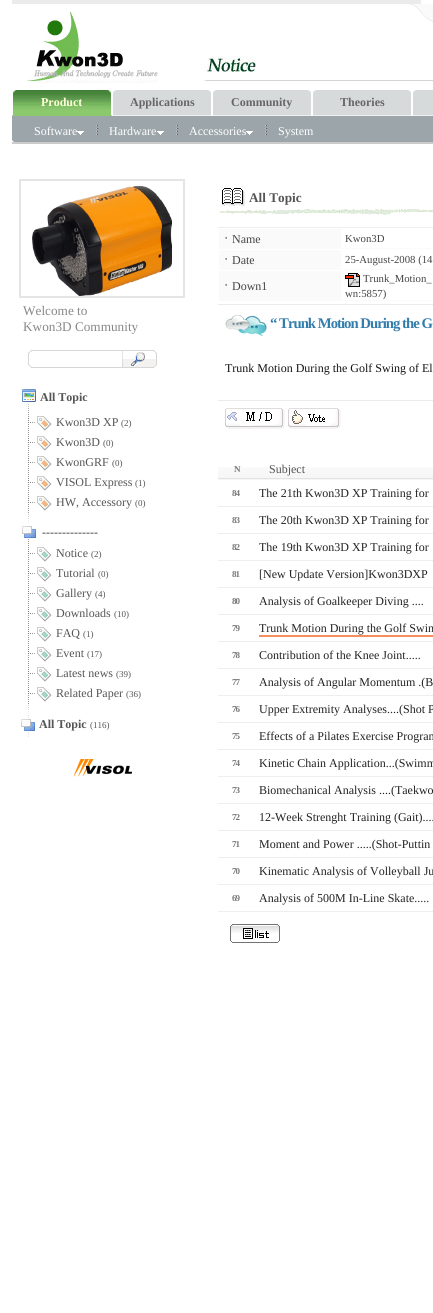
import math
import cairo


def write_spaced(ctx, x, y, s, letter, word):
	ctx.move_to(x, y)
	for ch in s:
		ctx.show_text(ch)
		ctx.rel_move_to(letter + word * (ch == ' '), 0)

def paste(ctx, path, x, y, w, h):
	ctx.save()
	ctx.set_source_surface(cairo.ImageSurface.create_from_png(path), x, y)
	ctx.rectangle(x, y, w, h)
	ctx.fill()
	ctx.restore()

def draw(ctx):
	ctx.set_source_rgb(1, 1, 1)
	ctx.paint()
	ctx.set_source_rgb(0.918, 0.918, 0.918)
	ctx.rectangle(12, 0, 409, 4)
	ctx.fill()
	paste(ctx, 'media/1.png', 27, 12, 131, 71)
	paste(ctx, 'media/2.png', 409, 4, 24, 18)
	paste(ctx, 'media/3.png', 201, 56, 232, 25)
	paste(ctx, 'media/4.png', 12, 90, 100, 26)
	ctx.select_font_face('Liberation Serif', cairo.FONT_SLANT_NORMAL, cairo.FONT_WEIGHT_BOLD)
	ctx.set_font_size(12)
	ctx.set_source_rgb(1, 1, 0.847)
	ctx.move_to(41, 106)
	ctx.show_text('Product')
	paste(ctx, 'media/5.png', 113, 90, 98, 26)
	ctx.set_source_rgb(0.4, 0.4, 0.4)
	ctx.move_to(130, 106)
	ctx.show_text('Applications')
	paste(ctx, 'media/5.png', 213, 90, 98, 26)
	ctx.move_to(231, 106)
	ctx.show_text('Community')
	paste(ctx, 'media/5.png', 313, 90, 98, 26)
	ctx.move_to(340, 106)
	ctx.show_text('Theories')
	paste(ctx, 'media/6.png', 413, 90, 20, 26)
	ctx.set_source_rgb(0.612, 0.647, 0.667)
	ctx.rectangle(12, 116, 421, 26)
	ctx.fill()
	ctx.select_font_face('Liberation Serif')
	ctx.set_source_rgb(1, 1, 1)
	ctx.move_to(34, 135)
	ctx.show_text('Software')
	paste(ctx, 'media/7.png', 77, 131, 7, 4)
	paste(ctx, 'media/8.png', 96, 125, 2, 10)
	ctx.move_to(109, 135)
	ctx.show_text('Hardware')
	paste(ctx, 'media/7.png', 157, 131, 7, 4)
	paste(ctx, 'media/8.png', 176, 125, 2, 10)
	ctx.move_to(189, 135)
	ctx.show_text('Accessories')
	paste(ctx, 'media/7.png', 246, 131, 7, 4)
	paste(ctx, 'media/8.png', 265, 125, 2, 10)
	ctx.move_to(278, 135)
	ctx.show_text('System')
	paste(ctx, 'media/9.png', 12, 140, 2, 2)
	ctx.set_source_rgb(0.8, 0.8, 0.8)
	ctx.rectangle(12, 142, 421, 2)
	ctx.fill()
	ctx.rectangle(20, 180, 164, 117)
	ctx.set_source_rgb(0.898, 0.898, 0.898)
	ctx.stroke()
	paste(ctx, 'media/10.png', 32, 186, 140, 110)
	ctx.set_font_size(13.25)
	ctx.set_source_rgb(0.533, 0.533, 0.533)
	ctx.move_to(23, 315)
	ctx.show_text('Welcome to')
	ctx.move_to(23, 331)
	ctx.show_text('Kwon3D Community')
	paste(ctx, 'media/11.png', 28, 350, 4, 18)
	ctx.set_source_rgb(0.839, 0.839, 0.839)
	ctx.rectangle(32, 350, 90, 1)
	ctx.fill()
	ctx.rectangle(32, 367, 90, 1)
	ctx.fill()
	paste(ctx, 'media/12.png', 122, 350, 35, 18)
	paste(ctx, 'media/13.png', 22, 389, 14, 24)
	ctx.select_font_face('Liberation Serif', cairo.FONT_SLANT_NORMAL, cairo.FONT_WEIGHT_BOLD)
	ctx.set_font_size(12)
	ctx.set_source_rgb(0.333, 0.333, 0.333)
	ctx.move_to(40, 401)
	ctx.show_text('All Topic')
	paste(ctx, 'media/14.png', 28, 414, 24, 19)
	ctx.select_font_face('Liberation Serif')
	ctx.move_to(56, 426)
	ctx.show_text('Kwon3D XP')
	ctx.set_font_size(9)
	ctx.move_to(121, 426)
	ctx.show_text('(2)')
	paste(ctx, 'media/14.png', 28, 434, 24, 19)
	ctx.set_font_size(12)
	ctx.move_to(56, 446)
	ctx.show_text('Kwon3D')
	ctx.set_font_size(9)
	ctx.move_to(103, 446)
	ctx.show_text('(0)')
	paste(ctx, 'media/14.png', 28, 454, 24, 19)
	ctx.set_font_size(12)
	ctx.move_to(56, 466)
	ctx.show_text('KwonGRF')
	ctx.set_font_size(9)
	ctx.move_to(112, 466)
	ctx.show_text('(0)')
	paste(ctx, 'media/14.png', 28, 474, 24, 19)
	ctx.set_font_size(12)
	ctx.move_to(56, 486)
	ctx.show_text('VISOL Express')
	ctx.set_font_size(9)
	ctx.move_to(135, 486)
	ctx.show_text('(1)')
	paste(ctx, 'media/14.png', 28, 494, 24, 19)
	ctx.set_font_size(12)
	ctx.move_to(56, 506)
	ctx.show_text('HW, Accessory')
	ctx.set_font_size(9)
	ctx.move_to(135, 506)
	ctx.show_text('(0)')
	paste(ctx, 'media/15.png', 28, 514, 1, 9)
	paste(ctx, 'media/16.png', 22, 526, 14, 18)
	ctx.select_font_face('Liberation Serif', cairo.FONT_SLANT_NORMAL, cairo.FONT_WEIGHT_BOLD)
	ctx.set_font_size(12)
	ctx.move_to(42, 536)
	ctx.show_text('--------------')
	paste(ctx, 'media/17.png', 28, 545, 24, 19)
	ctx.select_font_face('Liberation Serif')
	ctx.move_to(56, 557)
	ctx.show_text('Notice')
	ctx.set_font_size(9)
	ctx.move_to(91, 557)
	ctx.show_text('(2)')
	paste(ctx, 'media/17.png', 28, 565, 24, 19)
	ctx.set_font_size(12)
	ctx.move_to(56, 577)
	ctx.show_text('Tutorial')
	ctx.set_font_size(9)
	ctx.move_to(98, 577)
	ctx.show_text('(0)')
	paste(ctx, 'media/17.png', 28, 585, 24, 19)
	ctx.set_font_size(12)
	ctx.move_to(56, 597)
	ctx.show_text('Gallery')
	ctx.set_font_size(9)
	ctx.move_to(95, 597)
	ctx.show_text('(4)')
	paste(ctx, 'media/17.png', 28, 605, 24, 19)
	ctx.set_font_size(12)
	ctx.move_to(56, 617)
	ctx.show_text('Downloads')
	ctx.set_font_size(9)
	ctx.move_to(114, 617)
	ctx.show_text('(10)')
	paste(ctx, 'media/17.png', 28, 625, 24, 19)
	ctx.set_font_size(12)
	ctx.move_to(56, 637)
	ctx.show_text('FAQ')
	ctx.set_font_size(9)
	ctx.move_to(83, 637)
	ctx.show_text('(1)')
	paste(ctx, 'media/17.png', 28, 645, 24, 19)
	ctx.set_font_size(12)
	ctx.move_to(56, 657)
	ctx.show_text('Event')
	ctx.set_font_size(9)
	ctx.move_to(87, 657)
	ctx.show_text('(17)')
	paste(ctx, 'media/17.png', 28, 665, 24, 19)
	ctx.set_font_size(12)
	ctx.move_to(56, 677)
	ctx.show_text('Latest news')
	ctx.set_font_size(9)
	ctx.move_to(116, 677)
	ctx.show_text('(39)')
	paste(ctx, 'media/17.png', 28, 685, 24, 19)
	ctx.set_font_size(12)
	ctx.move_to(56, 697)
	ctx.show_text('Related Paper')
	ctx.set_font_size(9)
	ctx.move_to(126, 697)
	ctx.show_text('(36)')
	paste(ctx, 'media/15.png', 28, 705, 1, 9)
	paste(ctx, 'media/18.png', 21, 715, 14, 22)
	ctx.select_font_face('Liberation Serif', cairo.FONT_SLANT_NORMAL, cairo.FONT_WEIGHT_BOLD)
	ctx.set_font_size(12)
	ctx.move_to(39, 728)
	ctx.show_text('All Topic')
	ctx.select_font_face('Liberation Serif')
	ctx.set_font_size(9)
	ctx.move_to(90, 728)
	ctx.show_text('(116)')
	paste(ctx, 'media/19.png', 73, 759, 59, 18)
	paste(ctx, 'media/20.png', 222, 188, 23, 18)
	ctx.select_font_face('Liberation Serif', cairo.FONT_SLANT_NORMAL, cairo.FONT_WEIGHT_BOLD)
	ctx.set_font_size(13.25)
	ctx.move_to(249, 202)
	ctx.show_text('All Topic')
	paste(ctx, 'media/21.png', 219, 209, 214, 6)
	ctx.set_source_rgb(0.933, 0.933, 0.933)
	ctx.rectangle(218, 227, 215, 1)
	ctx.fill()
	ctx.set_source_rgb(0.98, 0.98, 0.98)
	ctx.rectangle(219, 229, 122, 20)
	ctx.fill()
	ctx.select_font_face('WenQuanYi Zen Hei', cairo.FONT_SLANT_NORMAL, cairo.FONT_WEIGHT_BOLD)
	ctx.set_font_size(12)
	ctx.set_source_rgb(0.271, 0.271, 0.271)
	ctx.move_to(220, 243)
	ctx.show_text('ㆍ')
	ctx.select_font_face('Liberation Serif')
	ctx.move_to(232, 243)
	ctx.show_text('Name')
	ctx.set_source_rgb(0.98, 0.98, 0.98)
	ctx.rectangle(342, 248, 91, 1)
	ctx.fill()
	ctx.set_font_size(10.75)
	ctx.set_source_rgb(0.271, 0.271, 0.271)
	ctx.move_to(345, 242)
	ctx.show_text('Kwon3D')
	ctx.set_source_rgb(0.98, 0.98, 0.98)
	ctx.rectangle(219, 250, 122, 20)
	ctx.fill()
	ctx.select_font_face('WenQuanYi Zen Hei', cairo.FONT_SLANT_NORMAL, cairo.FONT_WEIGHT_BOLD)
	ctx.set_font_size(12)
	ctx.set_source_rgb(0.271, 0.271, 0.271)
	ctx.move_to(220, 264)
	ctx.show_text('ㆍ')
	ctx.select_font_face('Liberation Serif')
	ctx.move_to(232, 264)
	ctx.show_text('Date')
	ctx.set_source_rgb(0.98, 0.98, 0.98)
	ctx.rectangle(342, 269, 91, 1)
	ctx.fill()
	ctx.set_font_size(10.75)
	ctx.set_source_rgb(0.271, 0.271, 0.271)
	ctx.move_to(345, 263)
	ctx.show_text('25-August-2008 (14:')
	ctx.set_source_rgb(0.98, 0.98, 0.98)
	ctx.rectangle(219, 271, 122, 30)
	ctx.fill()
	ctx.select_font_face('WenQuanYi Zen Hei', cairo.FONT_SLANT_NORMAL, cairo.FONT_WEIGHT_BOLD)
	ctx.set_font_size(12)
	ctx.set_source_rgb(0.271, 0.271, 0.271)
	ctx.move_to(220, 290)
	ctx.show_text('ㆍ')
	ctx.select_font_face('Liberation Serif')
	ctx.move_to(232, 290)
	ctx.show_text('Down1')
	ctx.set_source_rgb(0.98, 0.98, 0.98)
	ctx.rectangle(342, 300, 91, 1)
	ctx.fill()
	paste(ctx, 'media/22.png', 345, 273, 15, 14)
	ctx.set_font_size(10.75)
	ctx.set_source_rgb(0.271, 0.271, 0.271)
	ctx.move_to(363, 282)
	ctx.show_text('Trunk_Motion_')
	ctx.move_to(345, 297)
	ctx.show_text('wn:5857)')
	ctx.set_source_rgb(0.918, 0.918, 0.918)
	ctx.rectangle(218, 304, 215, 1)
	ctx.fill()
	ctx.rectangle(218, 400, 215, 1)
	ctx.fill()
	paste(ctx, 'media/23.png', 225, 315, 42, 21)
	ctx.select_font_face('Liberation Serif', cairo.FONT_SLANT_NORMAL, cairo.FONT_WEIGHT_BOLD)
	ctx.set_font_size(14.75)
	ctx.set_source_rgb(0.2, 0.49, 0.675)
	write_spaced(ctx, 270, 328, '“ Trunk Motion During the G', -1, 0)
	ctx.select_font_face('Liberation Serif')
	ctx.set_font_size(12)
	ctx.set_source_rgb(0.082, 0.082, 0.082)
	ctx.move_to(225, 372)
	ctx.show_text('Trunk Motion During the Golf Swing of El')
	paste(ctx, 'media/24.png', 225, 408, 60, 21)
	paste(ctx, 'media/25.png', 288, 408, 53, 21)
	paste(ctx, 'media/26.png', 218, 467, 39, 13)
	ctx.select_font_face('Liberation Serif', cairo.FONT_SLANT_NORMAL, cairo.FONT_WEIGHT_BOLD)
	ctx.set_font_size(9)
	ctx.set_source_rgb(0.467, 0.467, 0.467)
	write_spaced(ctx, 234, 472, 'N', -1, 0)
	paste(ctx, 'media/27.png', 257, 467, 176, 13)
	ctx.select_font_face('Liberation Serif')
	ctx.set_font_size(12)
	ctx.set_source_rgb(0.333, 0.333, 0.333)
	ctx.move_to(269, 473)
	ctx.show_text('Subject')
	ctx.select_font_face('Liberation Serif', cairo.FONT_SLANT_NORMAL, cairo.FONT_WEIGHT_BOLD)
	ctx.set_font_size(9)
	ctx.set_source_rgb(0.467, 0.467, 0.467)
	write_spaced(ctx, 232, 496, '84', -1, 0)
	ctx.select_font_face('Liberation Serif')
	ctx.set_font_size(12)
	ctx.set_source_rgb(0.133, 0.133, 0.133)
	ctx.move_to(259, 497)
	ctx.show_text('The 21th Kwon3D XP Training for')
	ctx.set_source_rgb(0.933, 0.933, 0.933)
	ctx.rectangle(218, 506, 215, 1)
	ctx.fill()
	ctx.select_font_face('Liberation Serif', cairo.FONT_SLANT_NORMAL, cairo.FONT_WEIGHT_BOLD)
	ctx.set_font_size(9)
	ctx.set_source_rgb(0.467, 0.467, 0.467)
	write_spaced(ctx, 232, 523, '83', -1, 0)
	ctx.select_font_face('Liberation Serif')
	ctx.set_font_size(12)
	ctx.set_source_rgb(0.133, 0.133, 0.133)
	ctx.move_to(259, 524)
	ctx.show_text('The 20th Kwon3D XP Training for')
	ctx.set_source_rgb(0.933, 0.933, 0.933)
	ctx.rectangle(218, 533, 215, 1)
	ctx.fill()
	ctx.select_font_face('Liberation Serif', cairo.FONT_SLANT_NORMAL, cairo.FONT_WEIGHT_BOLD)
	ctx.set_font_size(9)
	ctx.set_source_rgb(0.467, 0.467, 0.467)
	write_spaced(ctx, 232, 550, '82', -1, 0)
	ctx.select_font_face('Liberation Serif')
	ctx.set_font_size(12)
	ctx.set_source_rgb(0.133, 0.133, 0.133)
	ctx.move_to(259, 551)
	ctx.show_text('The 19th Kwon3D XP Training for')
	ctx.set_source_rgb(0.933, 0.933, 0.933)
	ctx.rectangle(218, 560, 215, 1)
	ctx.fill()
	ctx.select_font_face('Liberation Serif', cairo.FONT_SLANT_NORMAL, cairo.FONT_WEIGHT_BOLD)
	ctx.set_font_size(9)
	ctx.set_source_rgb(0.467, 0.467, 0.467)
	write_spaced(ctx, 232, 577, '81', -1, 0)
	ctx.select_font_face('Liberation Serif')
	ctx.set_font_size(12)
	ctx.set_source_rgb(0.133, 0.133, 0.133)
	ctx.move_to(259, 578)
	ctx.show_text('[New Update Version]Kwon3DXP')
	ctx.set_source_rgb(0.933, 0.933, 0.933)
	ctx.rectangle(218, 587, 215, 1)
	ctx.fill()
	ctx.select_font_face('Liberation Serif', cairo.FONT_SLANT_NORMAL, cairo.FONT_WEIGHT_BOLD)
	ctx.set_font_size(9)
	ctx.set_source_rgb(0.467, 0.467, 0.467)
	write_spaced(ctx, 232, 604, '80', -1, 0)
	ctx.select_font_face('Liberation Serif')
	ctx.set_font_size(12)
	ctx.set_source_rgb(0.133, 0.133, 0.133)
	ctx.move_to(259, 605)
	ctx.show_text('Analysis of Goalkeeper Diving ....')
	ctx.set_source_rgb(0.933, 0.933, 0.933)
	ctx.rectangle(218, 614, 215, 1)
	ctx.fill()
	ctx.select_font_face('Liberation Serif', cairo.FONT_SLANT_NORMAL, cairo.FONT_WEIGHT_BOLD)
	ctx.set_font_size(9)
	ctx.set_source_rgb(0.467, 0.467, 0.467)
	write_spaced(ctx, 232, 631, '79', -1, 0)
	ctx.select_font_face('Liberation Serif')
	ctx.set_font_size(12)
	ctx.set_source_rgb(0.133, 0.133, 0.133)
	ctx.move_to(259, 632)
	ctx.show_text('Trunk Motion During the Golf Swin')
	ctx.set_source_rgb(0.961, 0.557, 0.357)
	ctx.rectangle(259, 635, 174, 2)
	ctx.fill()
	ctx.set_source_rgb(0.933, 0.933, 0.933)
	ctx.rectangle(218, 641, 215, 1)
	ctx.fill()
	ctx.select_font_face('Liberation Serif', cairo.FONT_SLANT_NORMAL, cairo.FONT_WEIGHT_BOLD)
	ctx.set_font_size(9)
	ctx.set_source_rgb(0.467, 0.467, 0.467)
	write_spaced(ctx, 232, 658, '78', -1, 0)
	ctx.select_font_face('Liberation Serif')
	ctx.set_font_size(12)
	ctx.set_source_rgb(0.133, 0.133, 0.133)
	ctx.move_to(259, 659)
	ctx.show_text('Contribution of the Knee Joint.....')
	ctx.set_source_rgb(0.933, 0.933, 0.933)
	ctx.rectangle(218, 668, 215, 1)
	ctx.fill()
	ctx.select_font_face('Liberation Serif', cairo.FONT_SLANT_NORMAL, cairo.FONT_WEIGHT_BOLD)
	ctx.set_font_size(9)
	ctx.set_source_rgb(0.467, 0.467, 0.467)
	write_spaced(ctx, 232, 685, '77', -1, 0)
	ctx.select_font_face('Liberation Serif')
	ctx.set_font_size(12)
	ctx.set_source_rgb(0.133, 0.133, 0.133)
	ctx.move_to(259, 686)
	ctx.show_text('Analysis of Angular Momentum .(B')
	ctx.set_source_rgb(0.933, 0.933, 0.933)
	ctx.rectangle(218, 695, 215, 1)
	ctx.fill()
	ctx.select_font_face('Liberation Serif', cairo.FONT_SLANT_NORMAL, cairo.FONT_WEIGHT_BOLD)
	ctx.set_font_size(9)
	ctx.set_source_rgb(0.467, 0.467, 0.467)
	write_spaced(ctx, 232, 712, '76', -1, 0)
	ctx.select_font_face('Liberation Serif')
	ctx.set_font_size(12)
	ctx.set_source_rgb(0.133, 0.133, 0.133)
	ctx.move_to(259, 713)
	ctx.show_text('Upper Extremity Analyses....(Shot P')
	ctx.set_source_rgb(0.933, 0.933, 0.933)
	ctx.rectangle(218, 722, 215, 1)
	ctx.fill()
	ctx.select_font_face('Liberation Serif', cairo.FONT_SLANT_NORMAL, cairo.FONT_WEIGHT_BOLD)
	ctx.set_font_size(9)
	ctx.set_source_rgb(0.467, 0.467, 0.467)
	write_spaced(ctx, 232, 739, '75', -1, 0)
	ctx.select_font_face('Liberation Serif')
	ctx.set_font_size(12)
	ctx.set_source_rgb(0.133, 0.133, 0.133)
	ctx.move_to(259, 740)
	ctx.show_text('Effects of a Pilates Exercise Program')
	ctx.set_source_rgb(0.933, 0.933, 0.933)
	ctx.rectangle(218, 749, 215, 1)
	ctx.fill()
	ctx.select_font_face('Liberation Serif', cairo.FONT_SLANT_NORMAL, cairo.FONT_WEIGHT_BOLD)
	ctx.set_font_size(9)
	ctx.set_source_rgb(0.467, 0.467, 0.467)
	write_spaced(ctx, 232, 766, '74', -1, 0)
	ctx.select_font_face('Liberation Serif')
	ctx.set_font_size(12)
	ctx.set_source_rgb(0.133, 0.133, 0.133)
	ctx.move_to(259, 767)
	ctx.show_text('Kinetic Chain Application...(Swimm')
	ctx.set_source_rgb(0.933, 0.933, 0.933)
	ctx.rectangle(218, 776, 215, 1)
	ctx.fill()
	ctx.select_font_face('Liberation Serif', cairo.FONT_SLANT_NORMAL, cairo.FONT_WEIGHT_BOLD)
	ctx.set_font_size(9)
	ctx.set_source_rgb(0.467, 0.467, 0.467)
	write_spaced(ctx, 232, 793, '73', -1, 0)
	ctx.select_font_face('Liberation Serif')
	ctx.set_font_size(12)
	ctx.set_source_rgb(0.133, 0.133, 0.133)
	ctx.move_to(259, 794)
	ctx.show_text('Biomechanical Analysis ....(Taekwo')
	ctx.set_source_rgb(0.933, 0.933, 0.933)
	ctx.rectangle(218, 803, 215, 1)
	ctx.fill()
	ctx.select_font_face('Liberation Serif', cairo.FONT_SLANT_NORMAL, cairo.FONT_WEIGHT_BOLD)
	ctx.set_font_size(9)
	ctx.set_source_rgb(0.467, 0.467, 0.467)
	write_spaced(ctx, 232, 820, '72', -1, 0)
	ctx.select_font_face('Liberation Serif')
	ctx.set_font_size(12)
	ctx.set_source_rgb(0.133, 0.133, 0.133)
	ctx.move_to(259, 821)
	ctx.show_text('12-Week Strenght Training (Gait)....')
	ctx.set_source_rgb(0.933, 0.933, 0.933)
	ctx.rectangle(218, 830, 215, 1)
	ctx.fill()
	ctx.select_font_face('Liberation Serif', cairo.FONT_SLANT_NORMAL, cairo.FONT_WEIGHT_BOLD)
	ctx.set_font_size(9)
	ctx.set_source_rgb(0.467, 0.467, 0.467)
	write_spaced(ctx, 232, 847, '71', -1, 0)
	ctx.select_font_face('Liberation Serif')
	ctx.set_font_size(12)
	ctx.set_source_rgb(0.133, 0.133, 0.133)
	ctx.move_to(259, 848)
	ctx.show_text('Moment and Power .....(Shot-Puttin')
	ctx.set_source_rgb(0.933, 0.933, 0.933)
	ctx.rectangle(218, 857, 215, 1)
	ctx.fill()
	ctx.select_font_face('Liberation Serif', cairo.FONT_SLANT_NORMAL, cairo.FONT_WEIGHT_BOLD)
	ctx.set_font_size(9)
	ctx.set_source_rgb(0.467, 0.467, 0.467)
	write_spaced(ctx, 232, 874, '70', -1, 0)
	ctx.select_font_face('Liberation Serif')
	ctx.set_font_size(12)
	ctx.set_source_rgb(0.133, 0.133, 0.133)
	ctx.move_to(259, 875)
	ctx.show_text('Kinematic Analysis of Volleyball Ju')
	ctx.set_source_rgb(0.933, 0.933, 0.933)
	ctx.rectangle(218, 884, 215, 1)
	ctx.fill()
	ctx.select_font_face('Liberation Serif', cairo.FONT_SLANT_NORMAL, cairo.FONT_WEIGHT_BOLD)
	ctx.set_font_size(9)
	ctx.set_source_rgb(0.467, 0.467, 0.467)
	write_spaced(ctx, 232, 901, '69', -1, 0)
	ctx.select_font_face('Liberation Serif')
	ctx.set_font_size(12)
	ctx.set_source_rgb(0.133, 0.133, 0.133)
	ctx.move_to(259, 902)
	ctx.show_text('Analysis of 500M In-Line Skate.....')
	ctx.set_source_rgb(0.933, 0.933, 0.933)
	ctx.rectangle(218, 911, 215, 1)
	ctx.fill()
	paste(ctx, 'media/28.png', 230, 924, 50, 19)


surface = cairo.ImageSurface(cairo.FORMAT_RGB24, 433, 1313)
ctx = cairo.Context(surface)
options = cairo.FontOptions()
options.set_hint_metrics(cairo.HINT_METRICS_OFF)
options.set_hint_style(cairo.HINT_STYLE_NONE)
ctx.set_font_options(options)
ctx.set_miter_limit(4)
draw(ctx)
surface.write_to_png('image.png')
